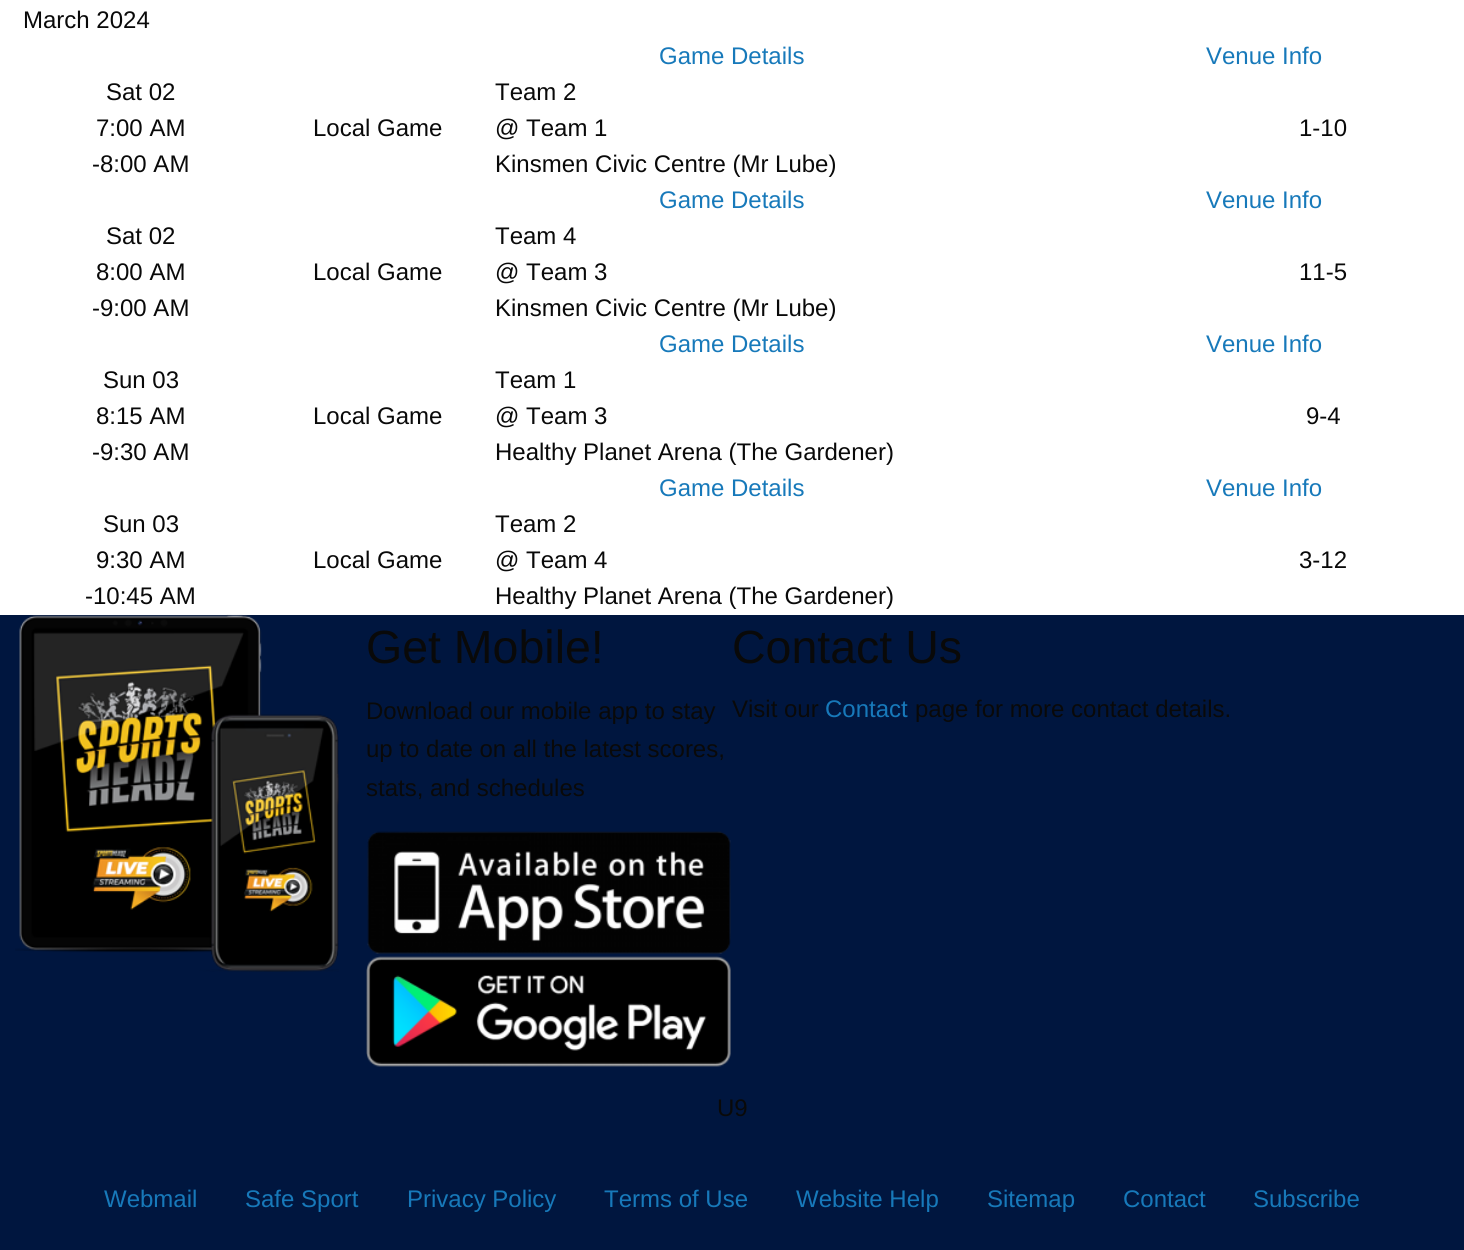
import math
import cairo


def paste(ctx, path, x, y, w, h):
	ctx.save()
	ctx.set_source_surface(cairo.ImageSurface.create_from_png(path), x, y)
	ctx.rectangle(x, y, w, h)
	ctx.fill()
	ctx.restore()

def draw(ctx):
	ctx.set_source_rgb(0, 0.086, 0.247)
	ctx.paint()
	ctx.set_source_rgb(1, 1, 1)
	ctx.rectangle(0, 0, 1464, 615)
	ctx.fill()
	ctx.select_font_face('Liberation Sans')
	ctx.set_font_size(24)
	ctx.set_source_rgb(0.039, 0.039, 0.039)
	ctx.move_to(23, 28)
	ctx.show_text('March 2024')
	ctx.set_source_rgb(0.09, 0.475, 0.729)
	ctx.move_to(659, 64)
	ctx.show_text('Game Details')
	ctx.move_to(1206, 64)
	ctx.show_text('Venue Info')
	ctx.set_source_rgb(0.039, 0.039, 0.039)
	for x, y, s in [
		(106, 100, 'Sat 02'),
		(96, 136, '7:00 AM'),
		(92, 172, '-8:00 AM'),
		(313, 136, 'Local Game'),
		(495, 100, 'Team 2'),
		(495, 136, '@ Team 1'),
		(495, 172, 'Kinsmen Civic Centre (Mr Lube)'),
		(1299, 136, '1-10'),
	]:
		ctx.move_to(x, y)
		ctx.show_text(s)
	ctx.set_source_rgb(0.09, 0.475, 0.729)
	ctx.move_to(659, 208)
	ctx.show_text('Game Details')
	ctx.move_to(1206, 208)
	ctx.show_text('Venue Info')
	ctx.set_source_rgb(0.039, 0.039, 0.039)
	for x, y, s in [
		(106, 244, 'Sat 02'),
		(96, 280, '8:00 AM'),
		(92, 316, '-9:00 AM'),
		(313, 280, 'Local Game'),
		(495, 244, 'Team 4'),
		(495, 280, '@ Team 3'),
		(495, 316, 'Kinsmen Civic Centre (Mr Lube)'),
		(1299, 280, '11-5'),
	]:
		ctx.move_to(x, y)
		ctx.show_text(s)
	ctx.set_source_rgb(0.09, 0.475, 0.729)
	ctx.move_to(659, 352)
	ctx.show_text('Game Details')
	ctx.move_to(1206, 352)
	ctx.show_text('Venue Info')
	ctx.set_source_rgb(0.039, 0.039, 0.039)
	for x, y, s in [
		(103, 388, 'Sun 03'),
		(96, 424, '8:15 AM'),
		(92, 460, '-9:30 AM'),
		(313, 424, 'Local Game'),
		(495, 388, 'Team 1'),
		(495, 424, '@ Team 3'),
		(495, 460, 'Healthy Planet Arena (The Gardener)'),
		(1306, 424, '9-4'),
	]:
		ctx.move_to(x, y)
		ctx.show_text(s)
	ctx.set_source_rgb(0.09, 0.475, 0.729)
	ctx.move_to(659, 496)
	ctx.show_text('Game Details')
	ctx.move_to(1206, 496)
	ctx.show_text('Venue Info')
	ctx.set_source_rgb(0.039, 0.039, 0.039)
	for x, y, s in [
		(103, 532, 'Sun 03'),
		(96, 568, '9:30 AM'),
		(85, 604, '-10:45 AM'),
		(313, 568, 'Local Game'),
		(495, 532, 'Team 2'),
		(495, 568, '@ Team 4'),
		(495, 604, 'Healthy Planet Arena (The Gardener)'),
		(1299, 568, '3-12'),
	]:
		ctx.move_to(x, y)
		ctx.show_text(s)
	paste(ctx, 'media/1.png', 15, 614, 324, 358)
	ctx.set_font_size(46.5)
	ctx.move_to(366, 663)
	ctx.show_text('Get Mobile!')
	ctx.set_font_size(24)
	for x, y, s in [
		(366, 719, 'Download our mobile app to stay'),
		(366, 757, 'up to date on all the latest scores,'),
		(366, 796, 'stats, and schedules'),
	]:
		ctx.move_to(x, y)
		ctx.show_text(s)
	paste(ctx, 'media/2.png', 367, 831, 364, 123)
	paste(ctx, 'media/3.png', 366, 956, 365, 111)
	ctx.set_font_size(46.5)
	ctx.move_to(732, 663)
	ctx.show_text('Contact Us')
	ctx.set_font_size(24)
	ctx.move_to(732, 717)
	ctx.show_text('Visit our')
	ctx.set_source_rgb(0.09, 0.475, 0.729)
	ctx.move_to(825, 717)
	ctx.show_text('Contact')
	ctx.set_source_rgb(0.039, 0.039, 0.039)
	ctx.move_to(915, 717)
	ctx.show_text('page for more contact details.')
	ctx.move_to(717, 1116)
	ctx.show_text('U9')
	ctx.set_source_rgb(0.09, 0.475, 0.729)
	for x, y, s in [
		(104, 1207, 'Webmail'),
		(245, 1207, 'Safe Sport'),
		(407, 1207, 'Privacy Policy'),
		(604, 1207, 'Terms of Use'),
		(796, 1207, 'Website Help'),
		(987, 1207, 'Sitemap'),
		(1123, 1207, 'Contact'),
		(1253, 1207, 'Subscribe'),
	]:
		ctx.move_to(x, y)
		ctx.show_text(s)


surface = cairo.ImageSurface(cairo.FORMAT_RGB24, 1464, 1250)
ctx = cairo.Context(surface)
options = cairo.FontOptions()
options.set_hint_metrics(cairo.HINT_METRICS_OFF)
options.set_hint_style(cairo.HINT_STYLE_NONE)
ctx.set_font_options(options)
ctx.set_miter_limit(4)
draw(ctx)
surface.write_to_png('image.png')
